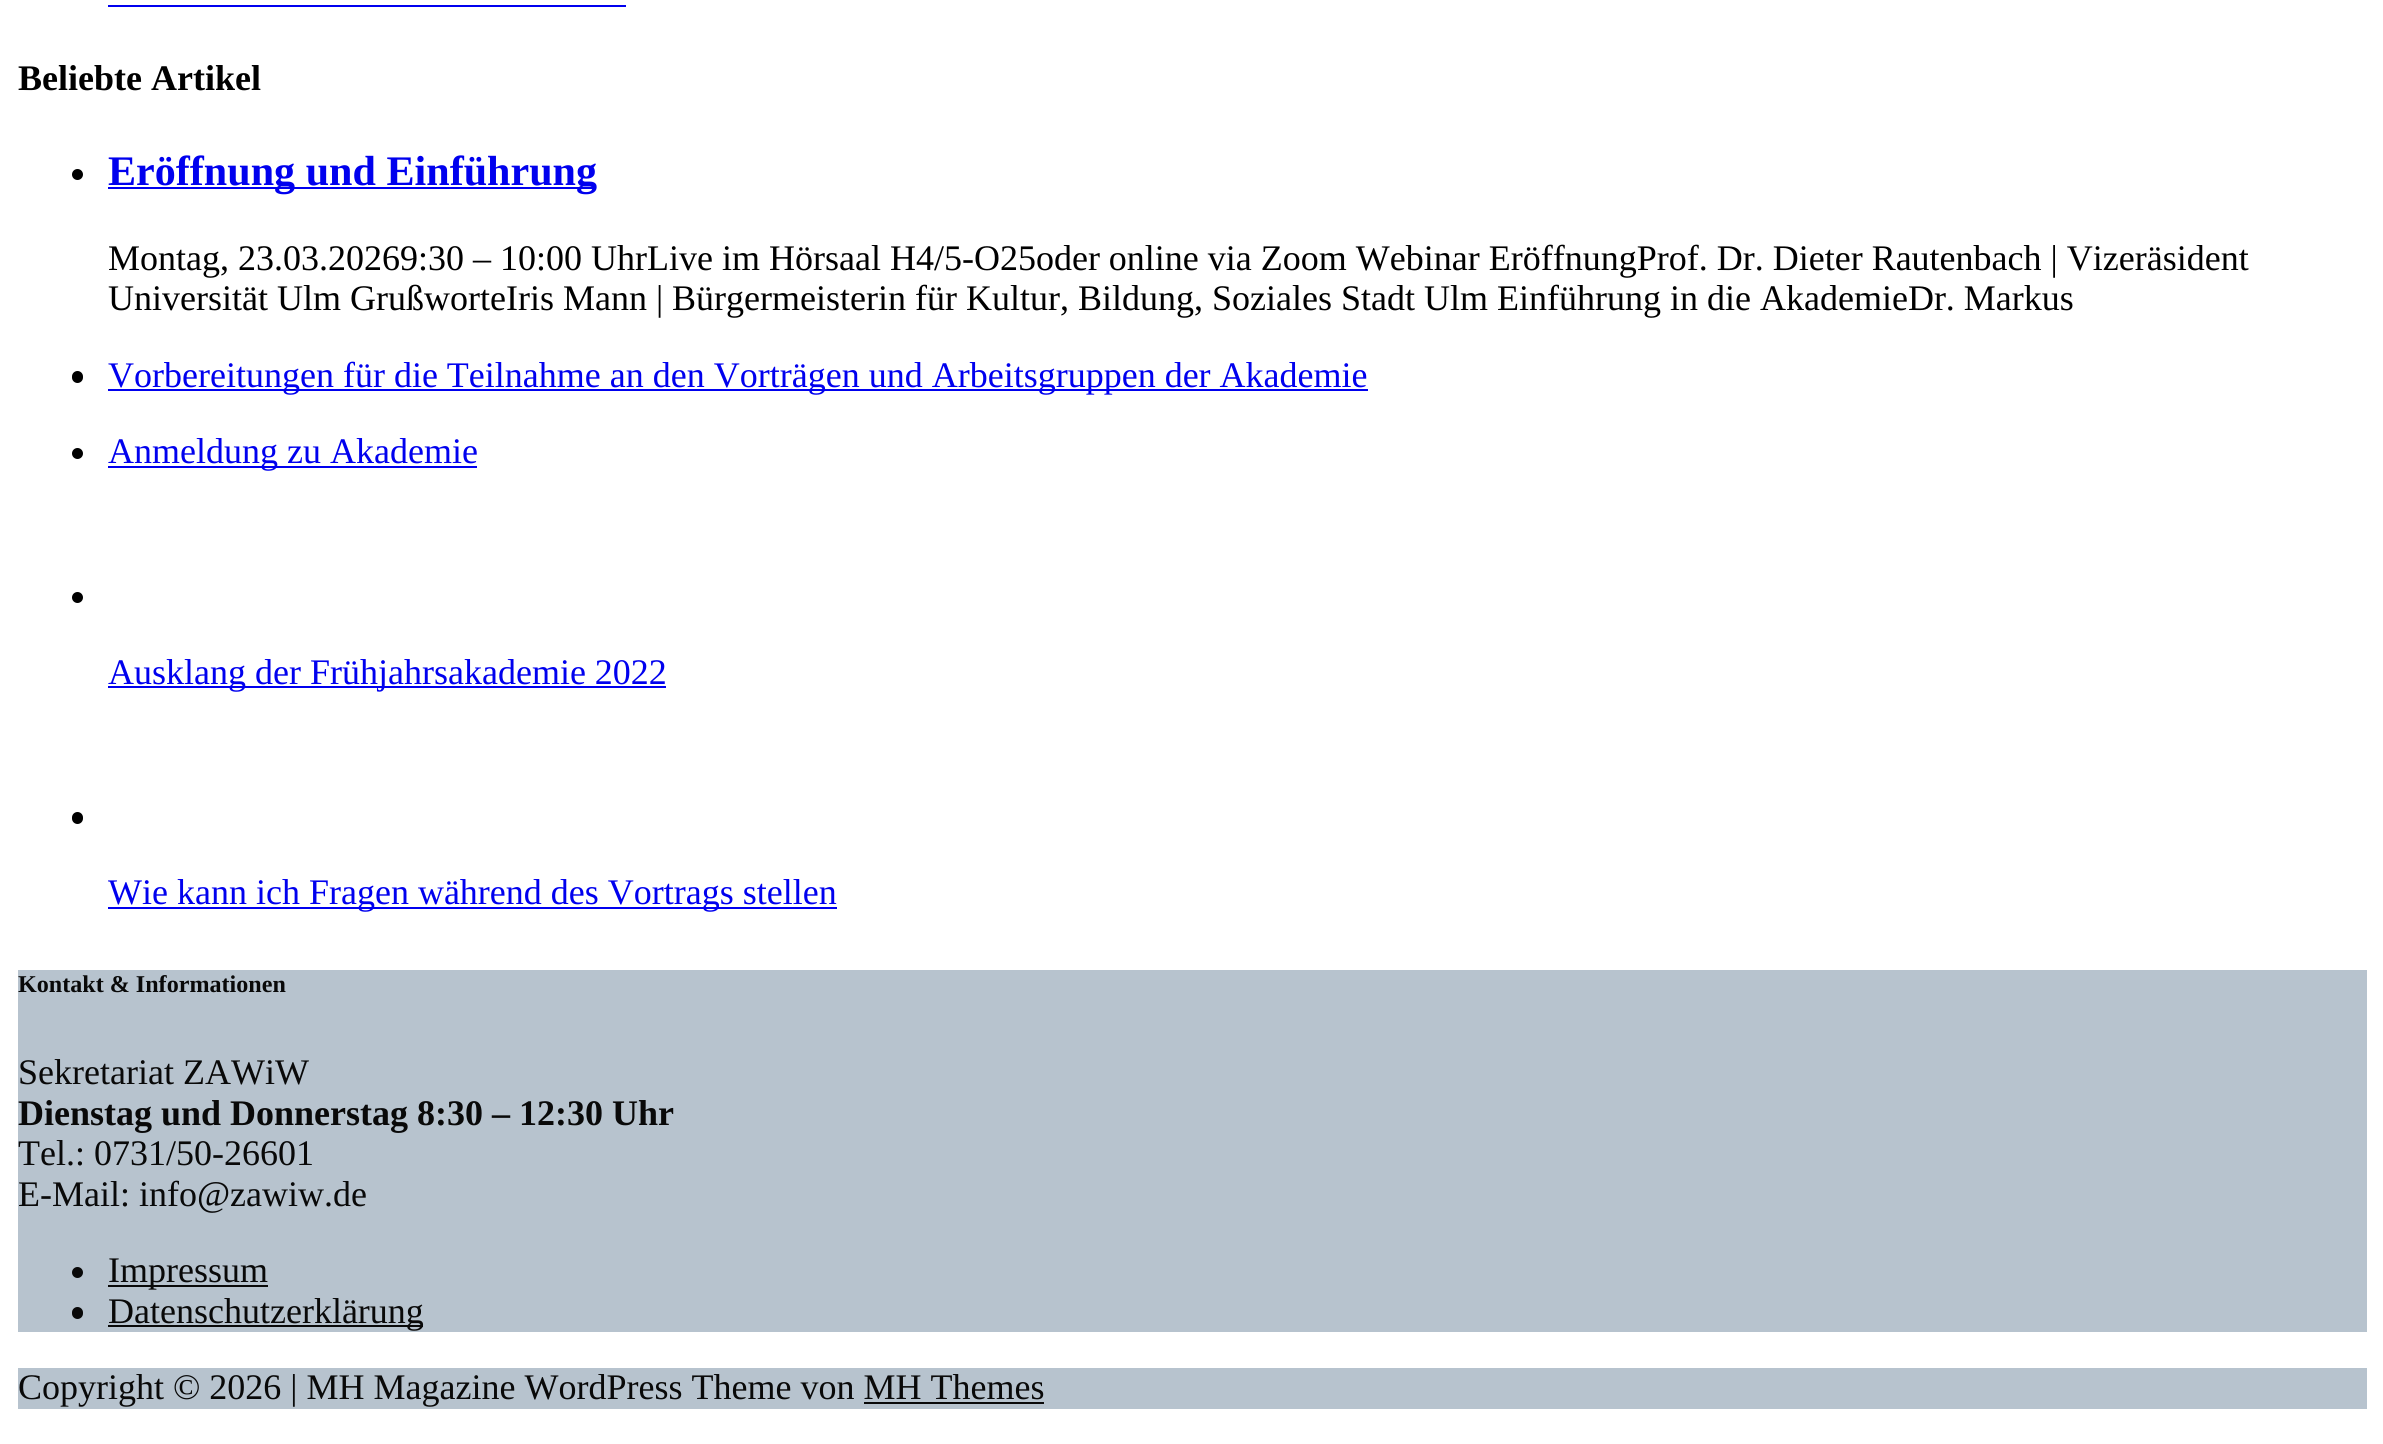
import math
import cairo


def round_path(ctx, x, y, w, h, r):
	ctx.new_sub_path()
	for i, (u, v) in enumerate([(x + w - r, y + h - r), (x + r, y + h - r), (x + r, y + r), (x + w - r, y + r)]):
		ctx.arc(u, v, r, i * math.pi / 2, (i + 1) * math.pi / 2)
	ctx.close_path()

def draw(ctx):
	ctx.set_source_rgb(1, 1, 1)
	ctx.paint()
	ctx.set_source_rgb(0, 0, 0.933)
	ctx.rectangle(108, 5, 518, 2)
	ctx.fill()
	ctx.select_font_face('Liberation Serif', cairo.FONT_SLANT_NORMAL, cairo.FONT_WEIGHT_BOLD)
	ctx.set_font_size(36)
	ctx.set_source_rgb(0, 0, 0)
	ctx.move_to(18, 90)
	ctx.show_text('Beliebte Artikel')
	ctx.new_path()
	ctx.arc(77.5, 174.5, 5.5, 0, 2 * math.pi)
	ctx.fill()
	ctx.set_source_rgb(0, 0, 0.933)
	ctx.rectangle(108, 187, 488, 2)
	ctx.fill()
	ctx.set_font_size(42.1)
	ctx.move_to(108, 185)
	ctx.show_text('Eröffnung und Einführung')
	ctx.select_font_face('Liberation Serif')
	ctx.set_font_size(36)
	ctx.set_source_rgb(0, 0, 0)
	ctx.move_to(108, 270)
	ctx.show_text('Montag, 23.03.20269:30 – 10:00 UhrLive im Hörsaal H4/5-O25oder online via Zoom Webinar EröffnungProf. Dr. Dieter Rautenbach | Vizeräsident')
	ctx.move_to(108, 310)
	ctx.show_text('Universität Ulm GrußworteIris Mann | Bürgermeisterin für Kultur, Bildung, Soziales Stadt Ulm Einführung in die AkademieDr. Markus')
	round_path(ctx, 72, 371, 11, 12, 5.5)
	ctx.fill()
	ctx.set_source_rgb(0, 0, 0.933)
	ctx.rectangle(108, 389, 1260, 2)
	ctx.fill()
	ctx.move_to(108, 387)
	ctx.show_text('Vorbereitungen für die Teilnahme an den Vorträgen und Arbeitsgruppen der Akademie')
	ctx.set_source_rgb(0, 0, 0)
	ctx.new_path()
	ctx.arc(77.5, 453.5, 5.5, 0, 2 * math.pi)
	ctx.fill()
	ctx.set_source_rgb(0, 0, 0.933)
	ctx.rectangle(108, 466, 369, 2)
	ctx.fill()
	ctx.move_to(108, 463)
	ctx.show_text('Anmeldung zu Akademie')
	ctx.set_source_rgb(0, 0, 0)
	ctx.new_path()
	ctx.arc(77.5, 597.5, 5.5, 0, 2 * math.pi)
	ctx.fill()
	ctx.set_source_rgb(0, 0, 0.933)
	ctx.rectangle(108, 686, 558, 2)
	ctx.fill()
	ctx.move_to(108, 684)
	ctx.show_text('Ausklang der Frühjahrsakademie 2022')
	ctx.set_source_rgb(0, 0, 0)
	round_path(ctx, 72, 812, 11, 12, 5.5)
	ctx.fill()
	ctx.set_source_rgb(0, 0, 0.933)
	ctx.rectangle(108, 907, 729, 2)
	ctx.fill()
	ctx.move_to(108, 904)
	ctx.show_text('Wie kann ich Fragen während des Vortrags stellen')
	ctx.set_source_rgb(0.718, 0.765, 0.808)
	ctx.rectangle(18, 970, 2349, 362)
	ctx.fill()
	ctx.select_font_face('Liberation Serif', cairo.FONT_SLANT_NORMAL, cairo.FONT_WEIGHT_BOLD)
	ctx.set_font_size(24.1)
	ctx.set_source_rgb(0.039, 0.039, 0.039)
	ctx.move_to(18, 992)
	ctx.show_text('Kontakt & Informationen')
	ctx.select_font_face('Liberation Serif')
	ctx.set_font_size(36)
	ctx.move_to(18, 1084)
	ctx.show_text('Sekretariat ZAWiW')
	ctx.select_font_face('Liberation Serif', cairo.FONT_SLANT_NORMAL, cairo.FONT_WEIGHT_BOLD)
	ctx.move_to(18, 1125)
	ctx.show_text('Dienstag und Donnerstag 8:30 – 12:30 Uhr')
	ctx.select_font_face('Liberation Serif')
	ctx.move_to(18, 1165)
	ctx.show_text('Tel.: 0731/50-26601')
	ctx.move_to(18, 1206)
	ctx.show_text('E-Mail: info@zawiw.de')
	ctx.new_path()
	ctx.arc(77.5, 1272.5, 5.5, 0, 2 * math.pi)
	ctx.fill()
	ctx.rectangle(108, 1285, 160, 2)
	ctx.fill()
	ctx.move_to(108, 1282)
	ctx.show_text('Impressum')
	round_path(ctx, 72, 1307, 11, 12, 5.5)
	ctx.fill()
	ctx.rectangle(108, 1325, 315, 2)
	ctx.fill()
	ctx.move_to(108, 1323)
	ctx.show_text('Datenschutzerklärung')
	ctx.set_source_rgb(0.718, 0.765, 0.808)
	ctx.rectangle(18, 1368, 2349, 41)
	ctx.fill()
	ctx.set_source_rgb(0.039, 0.039, 0.039)
	ctx.move_to(18, 1399)
	ctx.show_text('Copyright © 2026 | MH Magazine WordPress Theme von MH Themes')
	ctx.rectangle(864, 1402, 180, 2)
	ctx.fill()


surface = cairo.ImageSurface(cairo.FORMAT_RGB24, 2383, 1444)
ctx = cairo.Context(surface)
options = cairo.FontOptions()
options.set_hint_metrics(cairo.HINT_METRICS_OFF)
options.set_hint_style(cairo.HINT_STYLE_NONE)
ctx.set_font_options(options)
ctx.set_miter_limit(4)
draw(ctx)
surface.write_to_png('image.png')
